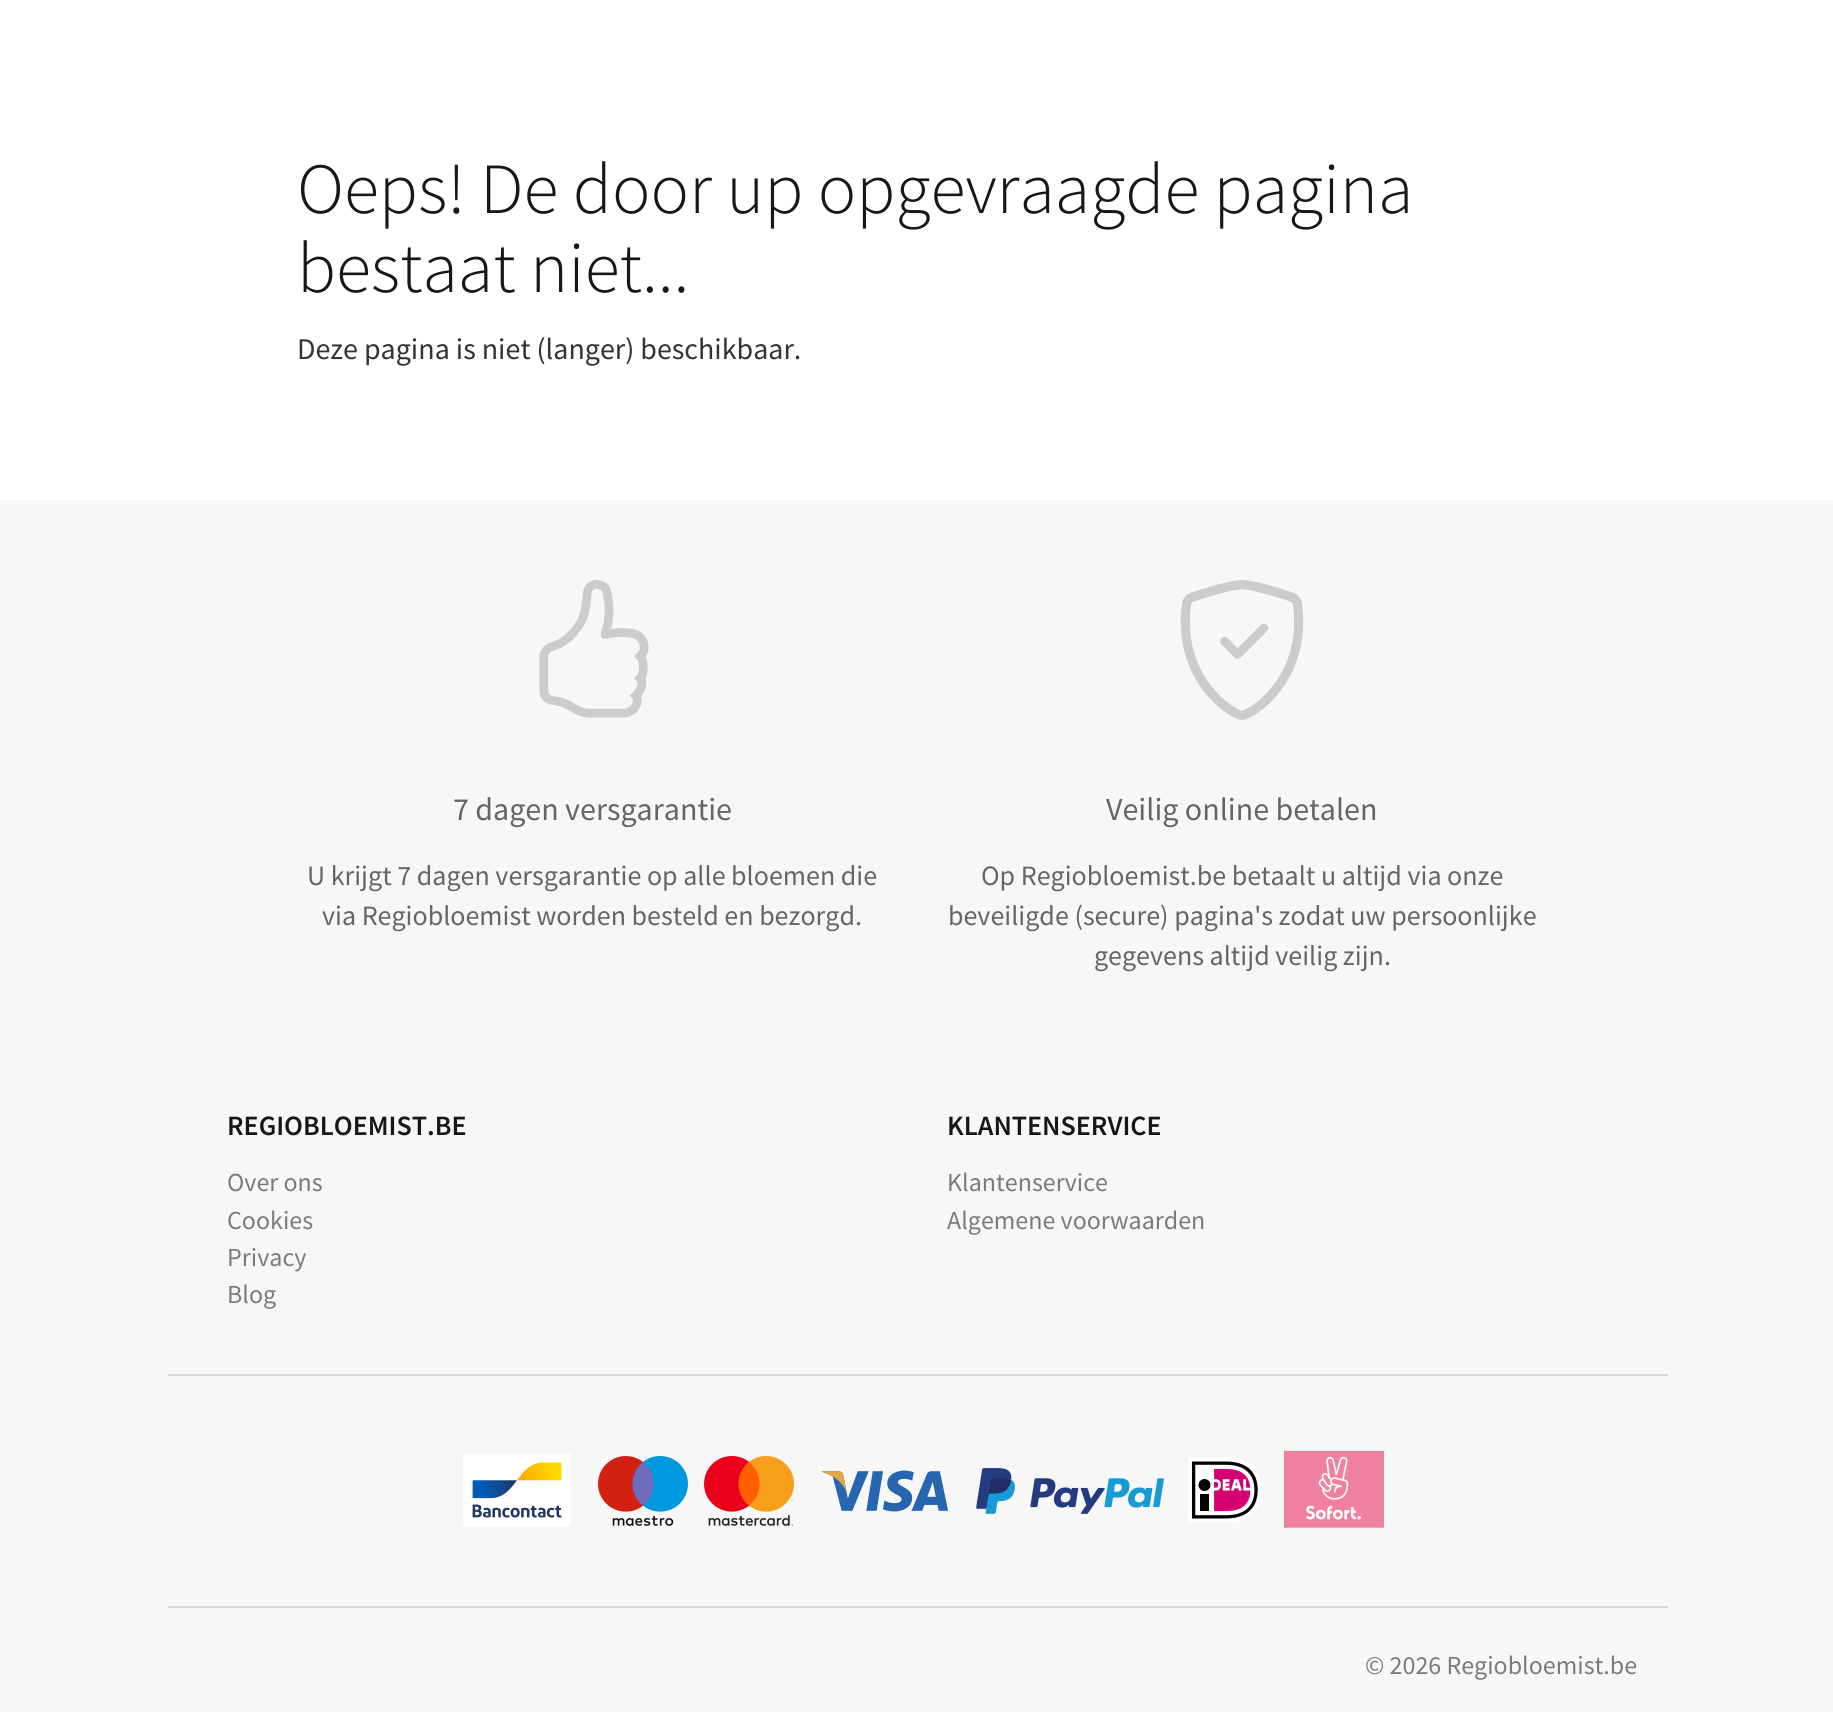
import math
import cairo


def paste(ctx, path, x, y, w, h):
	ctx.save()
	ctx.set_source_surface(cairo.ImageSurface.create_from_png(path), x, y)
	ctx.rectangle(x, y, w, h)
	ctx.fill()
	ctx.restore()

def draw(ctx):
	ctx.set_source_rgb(1, 1, 1)
	ctx.paint()
	ctx.select_font_face('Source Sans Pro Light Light')
	ctx.set_font_size(72)
	ctx.set_source_rgb(0.09, 0.09, 0.09)
	ctx.move_to(297, 213)
	ctx.show_text('Oeps! De door up opgevraagde pagina')
	ctx.move_to(297, 292)
	ctx.show_text('bestaat niet...')
	ctx.select_font_face('Source Sans Pro')
	ctx.set_font_size(30)
	ctx.set_source_rgb(0.2, 0.2, 0.2)
	ctx.move_to(297, 359)
	ctx.show_text('Deze pagina is niet (langer) beschikbaar.')
	ctx.set_source_rgb(0.965, 0.965, 0.965)
	ctx.rectangle(0, 500, 1833, 1212)
	ctx.fill()
	paste(ctx, 'media/1.png', 539, 580, 110, 138)
	ctx.set_font_size(32)
	ctx.set_source_rgb(0.396, 0.396, 0.396)
	ctx.move_to(453, 820)
	ctx.show_text('7 dagen versgarantie')
	ctx.set_font_size(28)
	ctx.move_to(307, 885)
	ctx.show_text('U krijgt 7 dagen versgarantie op alle bloemen die')
	ctx.move_to(322, 925)
	ctx.show_text('via Regiobloemist worden besteld en bezorgd.')
	paste(ctx, 'media/2.png', 1180, 580, 124, 140)
	ctx.set_font_size(32)
	ctx.move_to(1106, 820)
	ctx.show_text('Veilig online betalen')
	ctx.set_font_size(28)
	for x, y, s in [
		(981, 885, 'Op Regiobloemist.be betaalt u altijd via onze'),
		(948, 925, 'beveiligde (secure) pagina\'s zodat uw persoonlijke'),
		(1094, 965, 'gegevens altijd veilig zijn.'),
	]:
		ctx.move_to(x, y)
		ctx.show_text(s)
	ctx.select_font_face('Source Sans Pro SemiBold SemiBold')
	ctx.set_source_rgb(0.09, 0.09, 0.09)
	ctx.move_to(227, 1135)
	ctx.show_text('REGIOBLOEMIST.BE')
	ctx.select_font_face('Source Sans Pro')
	ctx.set_font_size(26)
	ctx.set_source_rgb(0.482, 0.482, 0.482)
	for x, y, s in [
		(227, 1191, 'Over ons'),
		(227, 1229, 'Cookies'),
		(227, 1266, 'Privacy'),
		(227, 1303, 'Blog'),
	]:
		ctx.move_to(x, y)
		ctx.show_text(s)
	ctx.select_font_face('Source Sans Pro SemiBold SemiBold')
	ctx.set_font_size(28)
	ctx.set_source_rgb(0.09, 0.09, 0.09)
	ctx.move_to(947, 1135)
	ctx.show_text('KLANTENSERVICE')
	ctx.select_font_face('Source Sans Pro')
	ctx.set_font_size(26)
	ctx.set_source_rgb(0.482, 0.482, 0.482)
	ctx.move_to(947, 1191)
	ctx.show_text('Klantenservice')
	ctx.move_to(947, 1229)
	ctx.show_text('Algemene voorwaarden')
	ctx.set_source_rgb(0.851, 0.851, 0.851)
	ctx.rectangle(168, 1374, 1500, 2)
	ctx.fill()
	paste(ctx, 'media/3.png', 463, 1453, 108, 74)
	paste(ctx, 'media/4.png', 598, 1456, 90, 70)
	paste(ctx, 'media/5.png', 704, 1456, 90, 70)
	paste(ctx, 'media/6.png', 821, 1470, 128, 42)
	paste(ctx, 'media/7.png', 976, 1468, 188, 46)
	paste(ctx, 'media/8.png', 1188, 1457, 74, 66)
	paste(ctx, 'media/9.png', 1284, 1450, 100, 78)
	ctx.rectangle(168, 1606, 1500, 2)
	ctx.fill()
	ctx.set_source_rgb(0.482, 0.482, 0.482)
	ctx.move_to(1365, 1674)
	ctx.show_text('© 2026 Regiobloemist.be')


surface = cairo.ImageSurface(cairo.FORMAT_RGB24, 1833, 1712)
ctx = cairo.Context(surface)
options = cairo.FontOptions()
options.set_hint_metrics(cairo.HINT_METRICS_OFF)
options.set_hint_style(cairo.HINT_STYLE_NONE)
ctx.set_font_options(options)
ctx.set_miter_limit(4)
draw(ctx)
surface.write_to_png('image.png')
